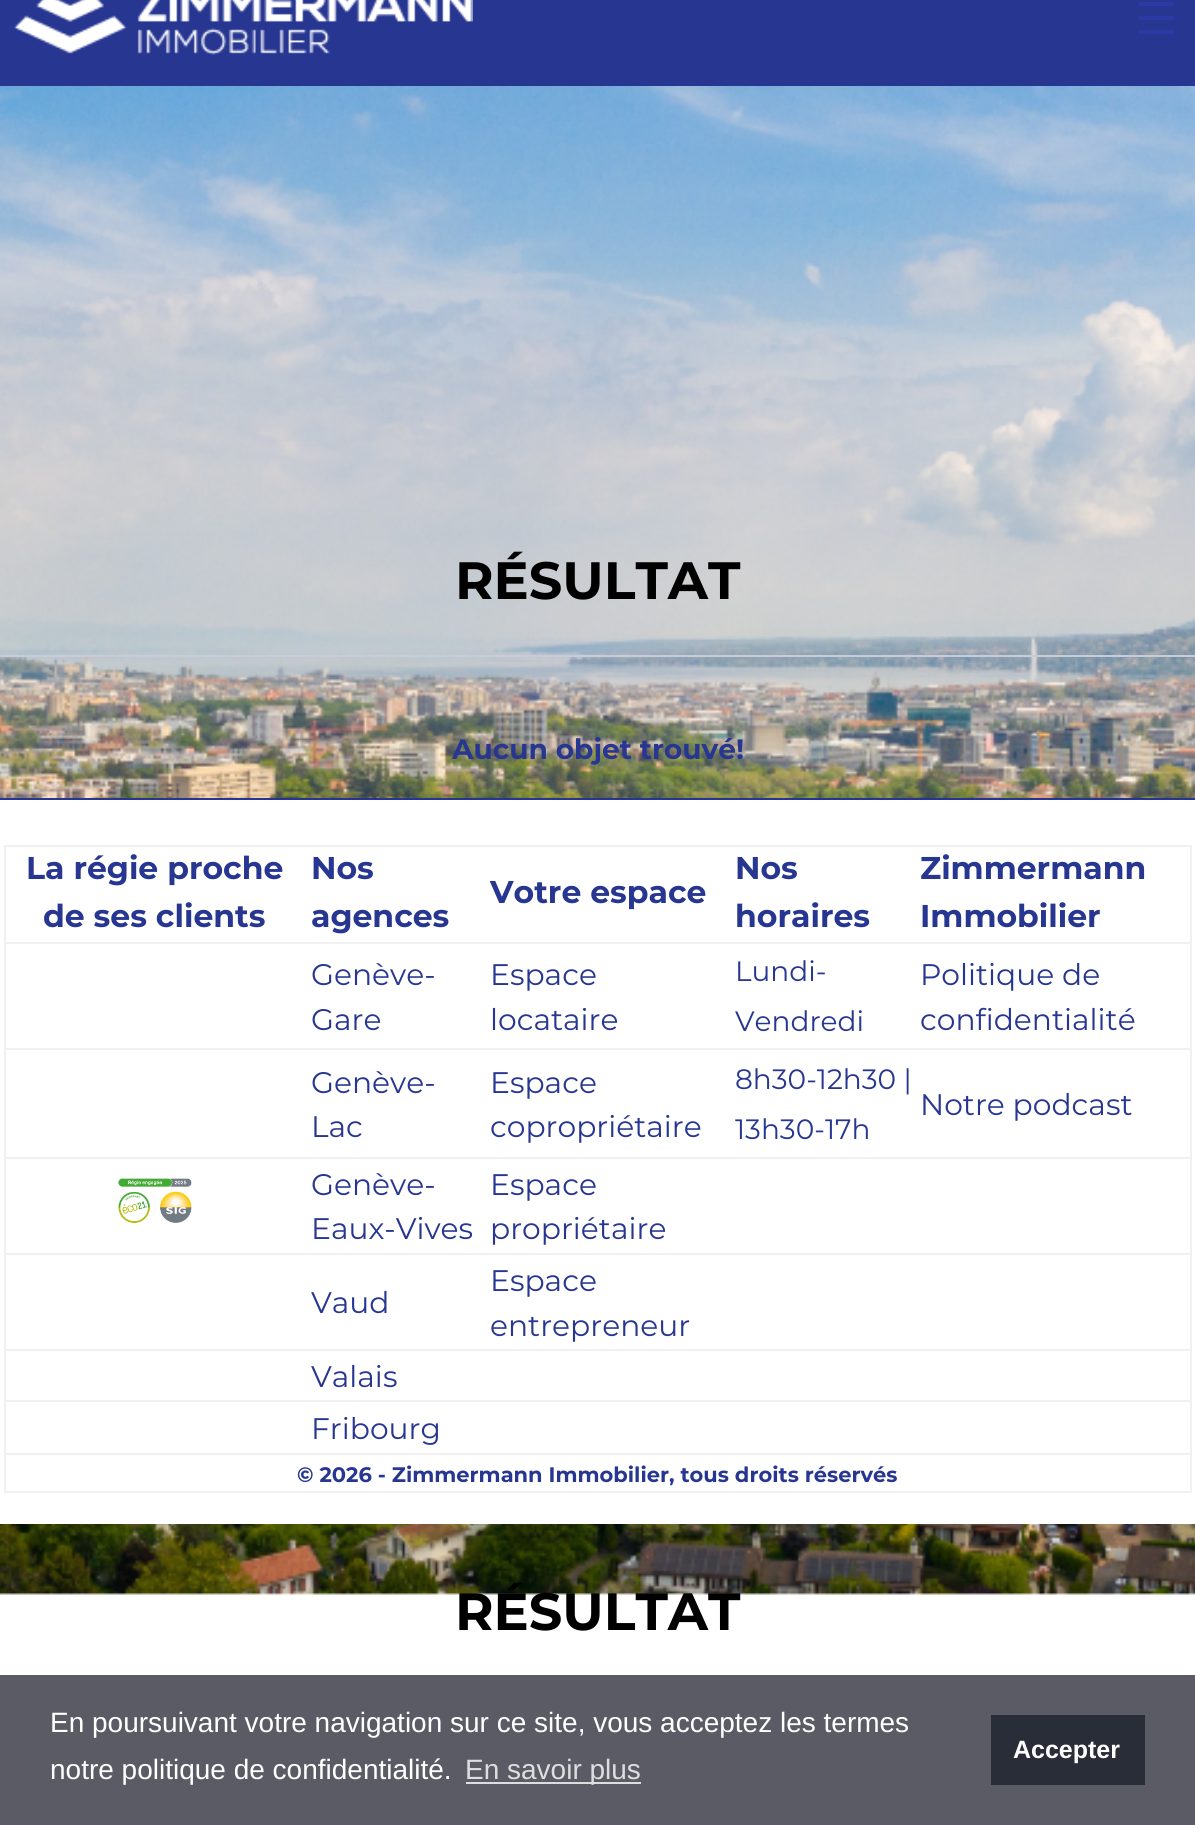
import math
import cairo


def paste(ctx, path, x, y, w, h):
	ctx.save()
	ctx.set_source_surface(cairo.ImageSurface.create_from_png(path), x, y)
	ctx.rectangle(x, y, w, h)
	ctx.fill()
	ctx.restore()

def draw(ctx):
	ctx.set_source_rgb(1, 1, 1)
	ctx.paint()
	paste(ctx, 'media/1.png', 0, 86, 1195, 1509)
	ctx.set_source_rgb(0.153, 0.212, 0.569)
	ctx.rectangle(0, 0, 1195, 86)
	ctx.fill()
	paste(ctx, 'media/2.png', 14, 0, 459, 55)
	ctx.set_source_rgb(0.173, 0.227, 0.647)
	ctx.rectangle(1139, 30, 35, 4)
	ctx.rectangle(1139, 16, 35, 4)
	ctx.rectangle(1139, 2, 35, 4)
	ctx.fill()
	ctx.select_font_face('Montserrat', cairo.FONT_SLANT_NORMAL, cairo.FONT_WEIGHT_BOLD)
	ctx.set_font_size(52.5)
	ctx.set_source_rgb(0, 0, 0)
	ctx.move_to(455, 599)
	ctx.show_text('RÉSULTAT')
	ctx.set_source_rgb(0.788, 0.8, 0.847)
	ctx.rectangle(0, 655, 1195, 2)
	ctx.fill()
	ctx.set_font_size(28)
	ctx.set_source_rgb(0.153, 0.212, 0.569)
	ctx.move_to(452, 759)
	ctx.show_text('Aucun objet trouvé!')
	ctx.set_source_rgb(1, 1, 1)
	ctx.rectangle(0, 800, 1195, 724)
	ctx.fill()
	ctx.set_source_rgb(0.153, 0.212, 0.569)
	ctx.rectangle(0, 798, 1195, 2)
	ctx.fill()
	ctx.rectangle(5, 846, 1186, 646)
	ctx.set_source_rgb(0.945, 0.945, 0.945)
	ctx.stroke()
	ctx.rectangle(4, 942, 1188, 2)
	ctx.fill()
	ctx.set_font_size(31.5)
	ctx.set_source_rgb(0.153, 0.212, 0.569)
	for x, y, s in [
		(26, 879, 'La régie proche'),
		(43, 927, 'de ses clients'),
		(311, 879, 'Nos'),
		(311, 927, 'agences'),
		(490, 903, 'Votre espace'),
		(735, 879, 'Nos'),
		(735, 927, 'horaires'),
		(920, 879, 'Zimmermann'),
		(920, 927, 'Immobilier'),
	]:
		ctx.move_to(x, y)
		ctx.show_text(s)
	ctx.set_source_rgb(0.945, 0.945, 0.945)
	ctx.rectangle(4, 1048, 1188, 2)
	ctx.fill()
	ctx.select_font_face('Montserrat')
	ctx.set_font_size(29.75)
	ctx.set_source_rgb(0.153, 0.212, 0.569)
	for x, y, s in [
		(311, 985, 'Genève-'),
		(311, 1030, 'Gare'),
		(490, 985, 'Espace'),
		(490, 1030, 'locataire'),
	]:
		ctx.move_to(x, y)
		ctx.show_text(s)
	ctx.set_font_size(28)
	ctx.move_to(735, 981)
	ctx.show_text('Lundi-')
	ctx.move_to(735, 1031)
	ctx.show_text('Vendredi')
	ctx.set_font_size(29.75)
	ctx.move_to(920, 985)
	ctx.show_text('Politique de')
	ctx.move_to(920, 1030)
	ctx.show_text('confidentialité')
	paste(ctx, 'media/3.png', 118, 1178, 74, 46)
	ctx.set_source_rgb(0.945, 0.945, 0.945)
	ctx.rectangle(4, 1157, 1188, 2)
	ctx.fill()
	ctx.set_source_rgb(0.153, 0.212, 0.569)
	for x, y, s in [
		(311, 1093, 'Genève-'),
		(311, 1137, 'Lac'),
		(490, 1093, 'Espace'),
		(490, 1137, 'copropriétaire'),
	]:
		ctx.move_to(x, y)
		ctx.show_text(s)
	ctx.set_font_size(28)
	ctx.move_to(735, 1089)
	ctx.show_text('8h30-12h30 |')
	ctx.move_to(735, 1139)
	ctx.show_text('13h30-17h')
	ctx.set_font_size(29.75)
	ctx.move_to(920, 1115)
	ctx.show_text('Notre podcast')
	ctx.set_source_rgb(0.945, 0.945, 0.945)
	ctx.rectangle(4, 1253, 1188, 2)
	ctx.fill()
	ctx.set_source_rgb(0.153, 0.212, 0.569)
	for x, y, s in [
		(311, 1195, 'Genève-'),
		(311, 1239, 'Eaux-Vives'),
		(490, 1195, 'Espace'),
		(490, 1239, 'propriétaire'),
	]:
		ctx.move_to(x, y)
		ctx.show_text(s)
	ctx.set_source_rgb(0.945, 0.945, 0.945)
	ctx.rectangle(4, 1349, 1188, 2)
	ctx.fill()
	ctx.set_source_rgb(0.153, 0.212, 0.569)
	for x, y, s in [
		(311, 1313, 'Vaud'),
		(490, 1291, 'Espace'),
		(490, 1336, 'entrepreneur'),
	]:
		ctx.move_to(x, y)
		ctx.show_text(s)
	ctx.set_source_rgb(0.945, 0.945, 0.945)
	ctx.rectangle(4, 1400, 1188, 2)
	ctx.fill()
	ctx.set_source_rgb(0.153, 0.212, 0.569)
	ctx.move_to(311, 1387)
	ctx.show_text('Valais')
	ctx.set_source_rgb(0.945, 0.945, 0.945)
	ctx.rectangle(4, 1453, 1188, 2)
	ctx.fill()
	ctx.set_source_rgb(0.153, 0.212, 0.569)
	ctx.move_to(311, 1439)
	ctx.show_text('Fribourg')
	ctx.select_font_face('Montserrat', cairo.FONT_SLANT_NORMAL, cairo.FONT_WEIGHT_BOLD)
	ctx.set_font_size(21)
	ctx.move_to(297, 1482)
	ctx.show_text('© 2026 - Zimmermann Immobilier, tous droits réservés')
	ctx.set_font_size(52.5)
	ctx.set_source_rgb(0, 0, 0)
	ctx.move_to(455, 1630)
	ctx.show_text('RÉSULTAT')
	ctx.set_source_rgb(0.357, 0.357, 0.4)
	ctx.rectangle(0, 1675, 1195, 150)
	ctx.fill()
	ctx.select_font_face('Liberation Sans')
	ctx.set_font_size(28)
	ctx.set_source_rgb(1, 1, 1)
	ctx.move_to(50, 1732)
	ctx.show_text('En poursuivant votre navigation sur ce site, vous acceptez les termes')
	ctx.move_to(50, 1779)
	ctx.show_text('notre politique de confidentialité.')
	ctx.set_source_rgb(0.871, 0.871, 0.878)
	ctx.rectangle(466, 1782, 175, 2)
	ctx.fill()
	ctx.move_to(465, 1779)
	ctx.show_text('En savoir plus')
	ctx.set_source_rgb(0.161, 0.176, 0.22)
	ctx.rectangle(991, 1715, 154, 70)
	ctx.fill()
	ctx.select_font_face('Liberation Sans', cairo.FONT_SLANT_NORMAL, cairo.FONT_WEIGHT_BOLD)
	ctx.set_font_size(25)
	ctx.set_source_rgb(1, 1, 1)
	ctx.move_to(1013, 1758)
	ctx.show_text('Accepter')


surface = cairo.ImageSurface(cairo.FORMAT_RGB24, 1195, 1825)
ctx = cairo.Context(surface)
options = cairo.FontOptions()
options.set_hint_metrics(cairo.HINT_METRICS_OFF)
options.set_hint_style(cairo.HINT_STYLE_NONE)
ctx.set_font_options(options)
ctx.set_miter_limit(4)
draw(ctx)
surface.write_to_png('image.png')
